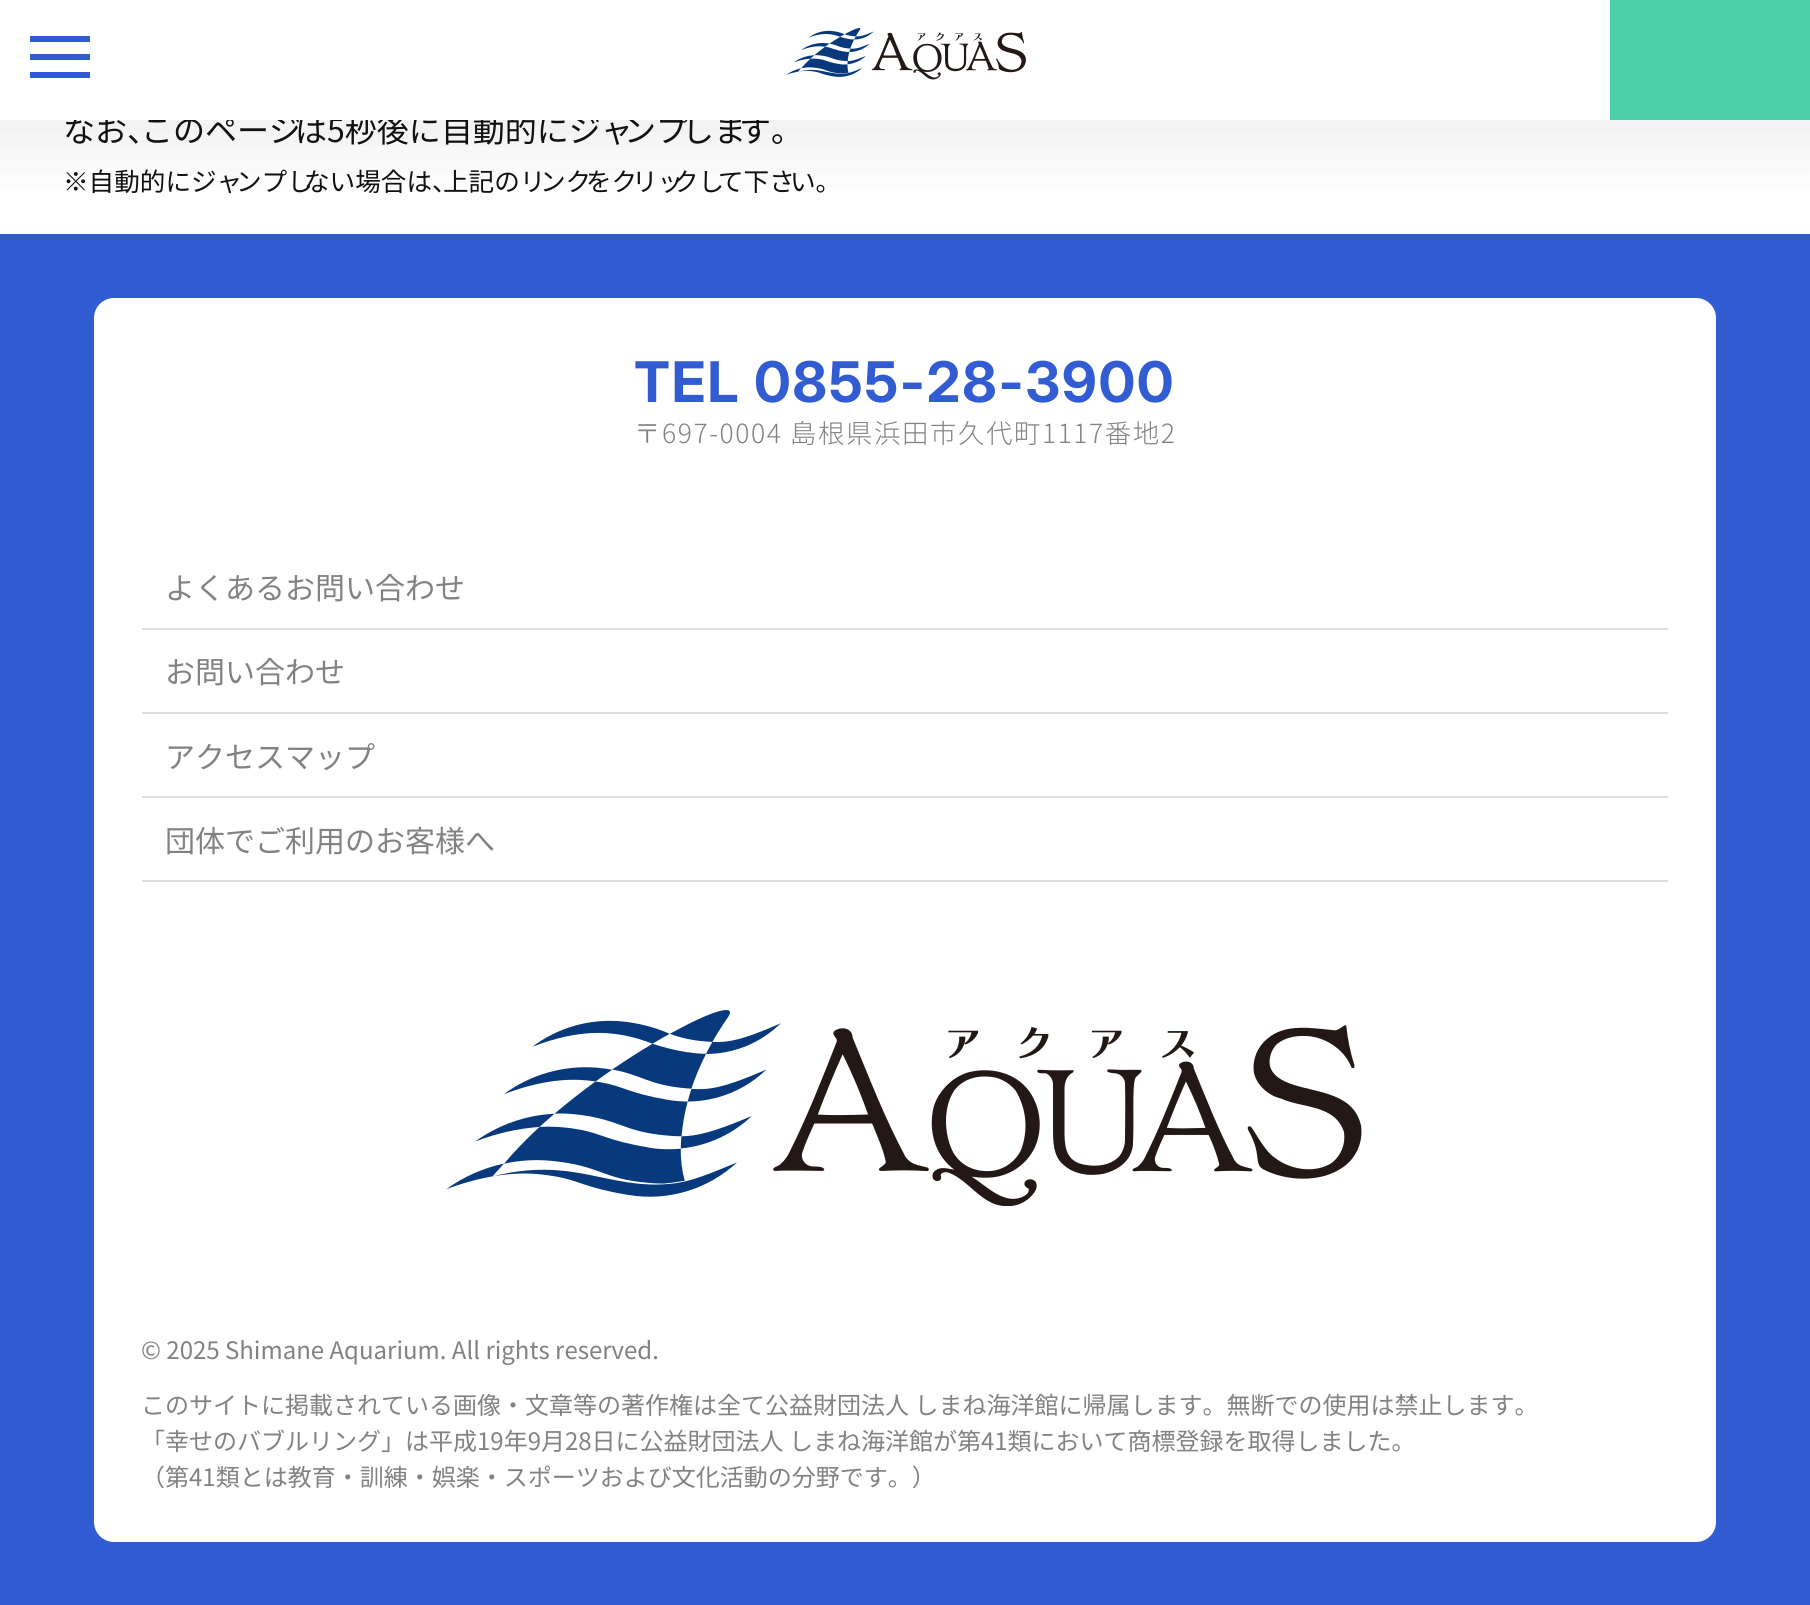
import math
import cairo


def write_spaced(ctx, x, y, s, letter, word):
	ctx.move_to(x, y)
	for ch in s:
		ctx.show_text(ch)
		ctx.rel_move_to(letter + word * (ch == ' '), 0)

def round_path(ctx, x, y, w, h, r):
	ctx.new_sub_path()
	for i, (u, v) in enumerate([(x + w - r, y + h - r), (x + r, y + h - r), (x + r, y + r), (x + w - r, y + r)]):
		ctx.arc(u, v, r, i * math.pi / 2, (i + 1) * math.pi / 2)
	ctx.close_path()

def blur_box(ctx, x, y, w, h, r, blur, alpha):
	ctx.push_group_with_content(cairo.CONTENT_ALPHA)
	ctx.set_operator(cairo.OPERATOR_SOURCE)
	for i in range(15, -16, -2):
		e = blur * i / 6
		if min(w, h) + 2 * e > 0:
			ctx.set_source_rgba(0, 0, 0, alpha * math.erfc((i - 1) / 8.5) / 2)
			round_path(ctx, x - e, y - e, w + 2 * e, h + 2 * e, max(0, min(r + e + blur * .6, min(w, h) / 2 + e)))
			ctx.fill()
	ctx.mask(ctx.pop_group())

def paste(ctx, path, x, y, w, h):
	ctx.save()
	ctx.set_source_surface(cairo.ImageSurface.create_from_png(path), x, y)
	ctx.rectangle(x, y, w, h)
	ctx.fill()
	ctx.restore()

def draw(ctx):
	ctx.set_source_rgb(1, 1, 1)
	ctx.paint()
	ctx.set_source_rgb(0.196, 0.361, 0.82)
	ctx.rectangle(0, 234, 1810, 1371)
	ctx.fill()
	ctx.set_source_rgb(0, 0, 0)
	blur_box(ctx, -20, -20, 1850, 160, 0, 40, 0.08)
	ctx.select_font_face('Noto Sans JP')
	ctx.set_font_size(32)
	ctx.set_source_rgb(0.067, 0.067, 0.067)
	ctx.move_to(63, 142)
	ctx.show_text('なお、')
	ctx.move_to(141, 142)
	ctx.show_text('このページ')
	ctx.move_to(295, 142)
	ctx.show_text('は5秒後に自動的にジャ')
	ctx.move_to(624, 142)
	ctx.show_text('ンプ')
	ctx.move_to(682, 142)
	ctx.show_text('しま')
	ctx.move_to(739, 142)
	ctx.show_text('す。')
	ctx.set_source_rgb(1, 1, 1)
	ctx.rectangle(0, 0, 1610, 120)
	ctx.fill()
	ctx.set_source_rgb(0.196, 0.361, 0.82)
	ctx.rectangle(30, 36, 60, 6)
	ctx.rectangle(30, 54, 60, 6)
	ctx.rectangle(30, 72, 60, 6)
	ctx.fill()
	paste(ctx, 'media/1.png', 786, 28, 240, 52)
	ctx.set_source_rgb(0.294, 0.808, 0.667)
	ctx.rectangle(1610, 0, 200, 120)
	ctx.fill()
	ctx.set_font_size(25.6)
	ctx.set_source_rgb(0.067, 0.067, 0.067)
	ctx.move_to(63, 191)
	ctx.show_text('※自動的にジャ')
	ctx.move_to(236, 191)
	ctx.show_text('ンプし')
	ctx.move_to(304, 191)
	ctx.show_text('ない場合は、')
	ctx.move_to(443, 191)
	ctx.show_text('上記のリ')
	ctx.move_to(540, 191)
	ctx.show_text('ンク')
	ctx.move_to(586, 191)
	ctx.show_text('をク')
	ctx.move_to(632, 191)
	ctx.show_text('リッ')
	ctx.move_to(673, 191)
	ctx.show_text('クし')
	ctx.move_to(718, 191)
	ctx.show_text('て下さ')
	ctx.move_to(790, 191)
	ctx.show_text('い。')
	ctx.set_source_rgb(1, 1, 1)
	round_path(ctx, 94, 298, 1622, 1244, 20)
	ctx.fill()
	ctx.select_font_face('Inter', cairo.FONT_SLANT_NORMAL, cairo.FONT_WEIGHT_BOLD)
	ctx.set_font_size(56)
	ctx.set_source_rgb(0.196, 0.361, 0.82)
	write_spaced(ctx, 634, 402, 'TEL 0855-28-3900', 1.6, 0)
	ctx.select_font_face('Noto Sans JP Light')
	ctx.set_font_size(26.4)
	ctx.set_source_rgb(0.514, 0.51, 0.51)
	write_spaced(ctx, 634, 443, '〒697-0004 島根県浜田市久代町1117番地2', 1.6, 0)
	ctx.set_source_rgb(0.871, 0.871, 0.871)
	ctx.rectangle(142, 628, 1526, 2)
	ctx.fill()
	ctx.select_font_face('Noto Sans JP')
	ctx.set_font_size(30)
	ctx.set_source_rgb(0.514, 0.51, 0.51)
	ctx.move_to(165, 599)
	ctx.show_text('よくあるお問い合わせ')
	ctx.set_source_rgb(0.871, 0.871, 0.871)
	ctx.rectangle(142, 712, 1526, 2)
	ctx.fill()
	ctx.set_source_rgb(0.514, 0.51, 0.51)
	ctx.move_to(165, 683)
	ctx.show_text('お問い合わせ')
	ctx.set_source_rgb(0.871, 0.871, 0.871)
	ctx.rectangle(142, 796, 1526, 2)
	ctx.fill()
	ctx.set_source_rgb(0.514, 0.51, 0.51)
	ctx.move_to(165, 768)
	ctx.show_text('アクセスマップ')
	ctx.set_source_rgb(0.871, 0.871, 0.871)
	ctx.rectangle(142, 880, 1526, 2)
	ctx.fill()
	ctx.set_source_rgb(0.514, 0.51, 0.51)
	ctx.move_to(165, 852)
	ctx.show_text('団体でご利用のお客様へ')
	paste(ctx, 'media/2.png', 446, 1010, 916, 196)
	ctx.set_font_size(24)
	for x, y, s in [
		(141, 1359, '© 2025 Shimane Aquarium. All rights reserved.'),
		(141, 1414, 'このサイトに掲載されている画像・文章等の著作権は全て公益財団法人 しまね海洋館に帰属します。無断での使用は禁止します。'),
		(141, 1450, '「幸せのバブルリング」は平成19年9月28日に公益財団法人 しまね海洋館が第41類において商標登録を取得しました。'),
		(141, 1486, '（第41類とは教育・訓練・娯楽・スポーツおよび文化活動の分野です。）'),
	]:
		ctx.move_to(x, y)
		ctx.show_text(s)


surface = cairo.ImageSurface(cairo.FORMAT_RGB24, 1810, 1605)
ctx = cairo.Context(surface)
options = cairo.FontOptions()
options.set_hint_metrics(cairo.HINT_METRICS_OFF)
options.set_hint_style(cairo.HINT_STYLE_NONE)
ctx.set_font_options(options)
ctx.set_miter_limit(4)
draw(ctx)
surface.write_to_png('image.png')
